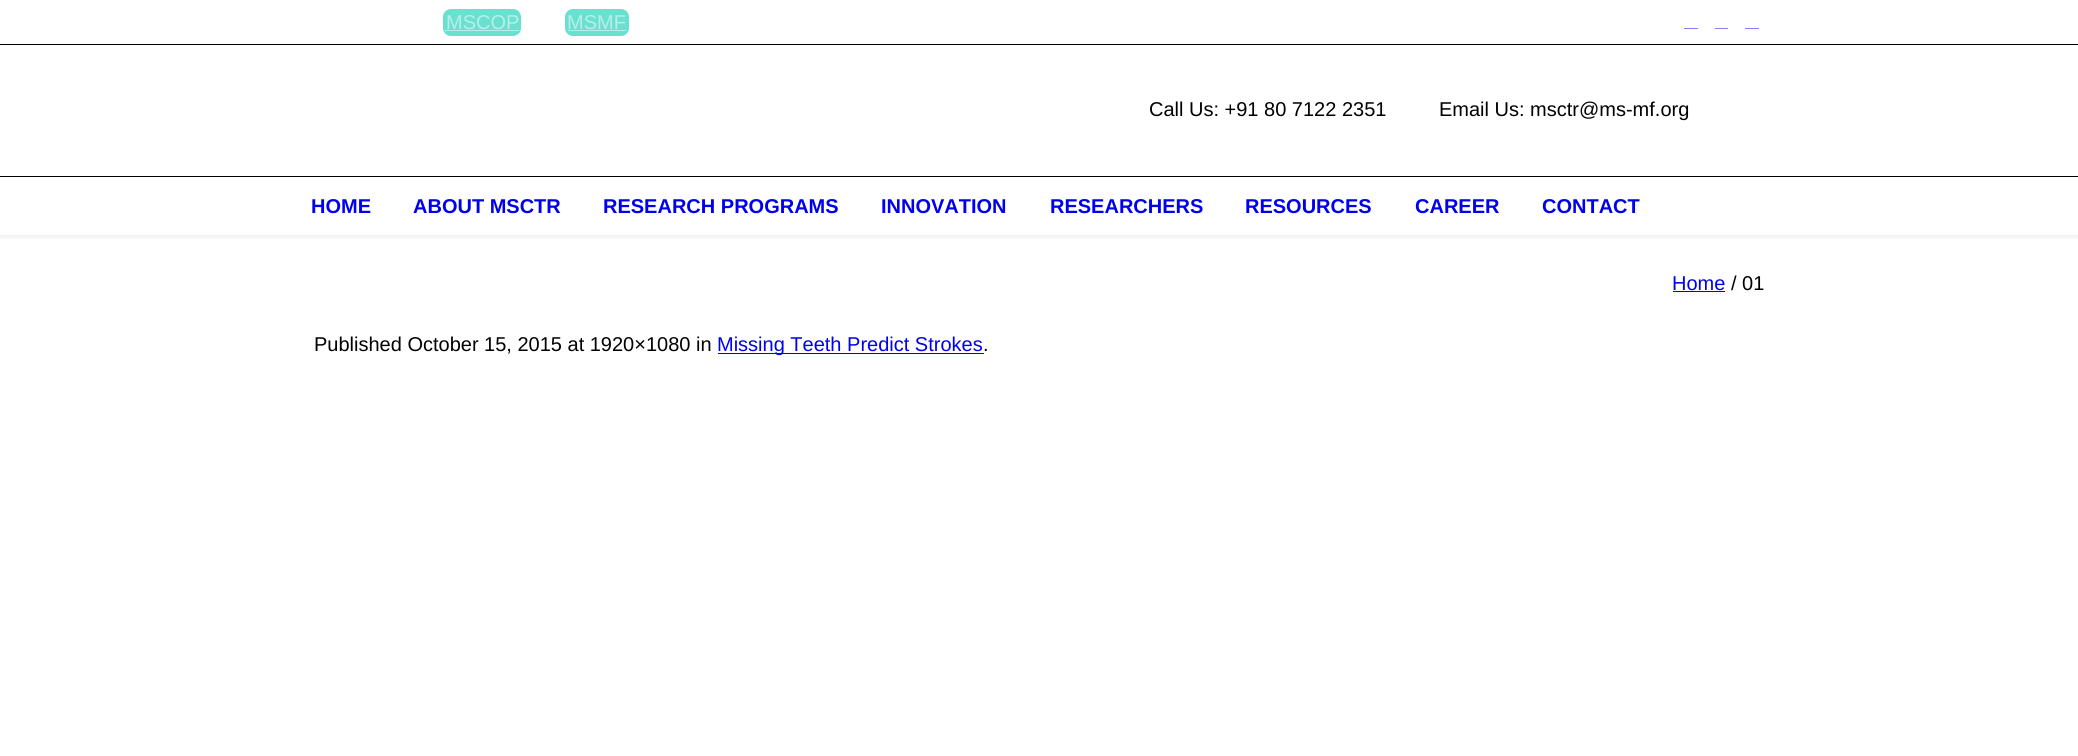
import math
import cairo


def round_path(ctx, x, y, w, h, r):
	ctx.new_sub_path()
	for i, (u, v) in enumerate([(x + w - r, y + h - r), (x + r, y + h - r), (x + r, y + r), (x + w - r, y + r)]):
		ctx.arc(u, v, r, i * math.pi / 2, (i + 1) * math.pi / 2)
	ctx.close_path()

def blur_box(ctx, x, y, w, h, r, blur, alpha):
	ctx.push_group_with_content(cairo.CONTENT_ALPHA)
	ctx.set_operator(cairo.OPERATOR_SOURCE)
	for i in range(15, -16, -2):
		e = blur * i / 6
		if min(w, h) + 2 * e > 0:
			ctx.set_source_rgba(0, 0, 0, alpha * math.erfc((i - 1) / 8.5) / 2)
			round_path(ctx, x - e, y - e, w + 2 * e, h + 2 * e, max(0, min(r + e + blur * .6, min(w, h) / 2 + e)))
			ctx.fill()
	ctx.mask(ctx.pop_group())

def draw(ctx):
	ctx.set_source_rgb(1, 1, 1)
	ctx.paint()
	ctx.save()
	ctx.rectangle(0, 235, 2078, 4)
	ctx.clip()
	ctx.set_source_rgb(0, 0, 0)
	blur_box(ctx, 0, 1, 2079, 235, 0, 3, 0.1)
	ctx.restore()
	ctx.set_source_rgb(0, 0, 0)
	ctx.rectangle(0, 44, 2078, 1)
	ctx.fill()
	ctx.set_source_rgb(0.412, 0.878, 0.816)
	round_path(ctx, 443, 9, 78, 27, 8)
	ctx.fill()
	ctx.select_font_face('Liberation Sans')
	ctx.set_font_size(20)
	ctx.set_source_rgb(0.706, 0.941, 0.91)
	ctx.move_to(446, 29)
	ctx.show_text('MSCOP')
	ctx.rectangle(445, 30, 74, 1)
	ctx.fill()
	ctx.set_source_rgb(0.412, 0.878, 0.816)
	round_path(ctx, 565, 9, 64, 27, 8)
	ctx.fill()
	ctx.set_source_rgb(0.706, 0.941, 0.91)
	ctx.move_to(567, 29)
	ctx.show_text('MSMF')
	ctx.rectangle(568, 30, 58, 1)
	ctx.fill()
	ctx.set_source_rgb(0.502, 0.502, 0.969)
	ctx.rectangle(1684, 28, 14, 1)
	ctx.rectangle(1715, 28, 13, 1)
	ctx.rectangle(1745, 28, 14, 1)
	ctx.fill()
	ctx.set_source_rgb(0, 0, 0)
	ctx.move_to(1149, 116)
	ctx.show_text('Call Us: +91 80 7122 2351')
	ctx.move_to(1439, 116)
	ctx.show_text('Email Us: msctr@ms-mf.org')
	ctx.rectangle(0, 176, 2078, 1)
	ctx.fill()
	ctx.select_font_face('Liberation Sans', cairo.FONT_SLANT_NORMAL, cairo.FONT_WEIGHT_BOLD)
	ctx.set_source_rgb(0, 0, 0.933)
	for x, y, s in [
		(311, 213, 'HOME'),
		(413, 213, 'ABOUT MSCTR'),
		(603, 213, 'RESEARCH PROGRAMS'),
		(881, 213, 'INNOVATION'),
		(1050, 213, 'RESEARCHERS'),
		(1245, 213, 'RESOURCES'),
		(1415, 213, 'CAREER'),
		(1542, 213, 'CONTACT'),
	]:
		ctx.move_to(x, y)
		ctx.show_text(s)
	ctx.select_font_face('Liberation Sans')
	ctx.move_to(1672, 290)
	ctx.show_text('Home')
	ctx.rectangle(1673, 291, 52, 1)
	ctx.fill()
	ctx.set_source_rgb(0, 0, 0)
	ctx.move_to(1731, 290)
	ctx.show_text('/ 01')
	ctx.move_to(314, 351)
	ctx.show_text('Published October 15, 2015 at 1920×1080 in')
	ctx.set_source_rgb(0, 0, 0.933)
	ctx.rectangle(718, 353, 266, 1)
	ctx.fill()
	ctx.move_to(717, 351)
	ctx.show_text('Missing Teeth Predict Strokes')
	ctx.set_source_rgb(0, 0, 0)
	ctx.move_to(983, 351)
	ctx.show_text('.')


surface = cairo.ImageSurface(cairo.FORMAT_RGB24, 2078, 756)
ctx = cairo.Context(surface)
options = cairo.FontOptions()
options.set_hint_metrics(cairo.HINT_METRICS_OFF)
options.set_hint_style(cairo.HINT_STYLE_NONE)
ctx.set_font_options(options)
ctx.set_miter_limit(4)
draw(ctx)
surface.write_to_png('image.png')
